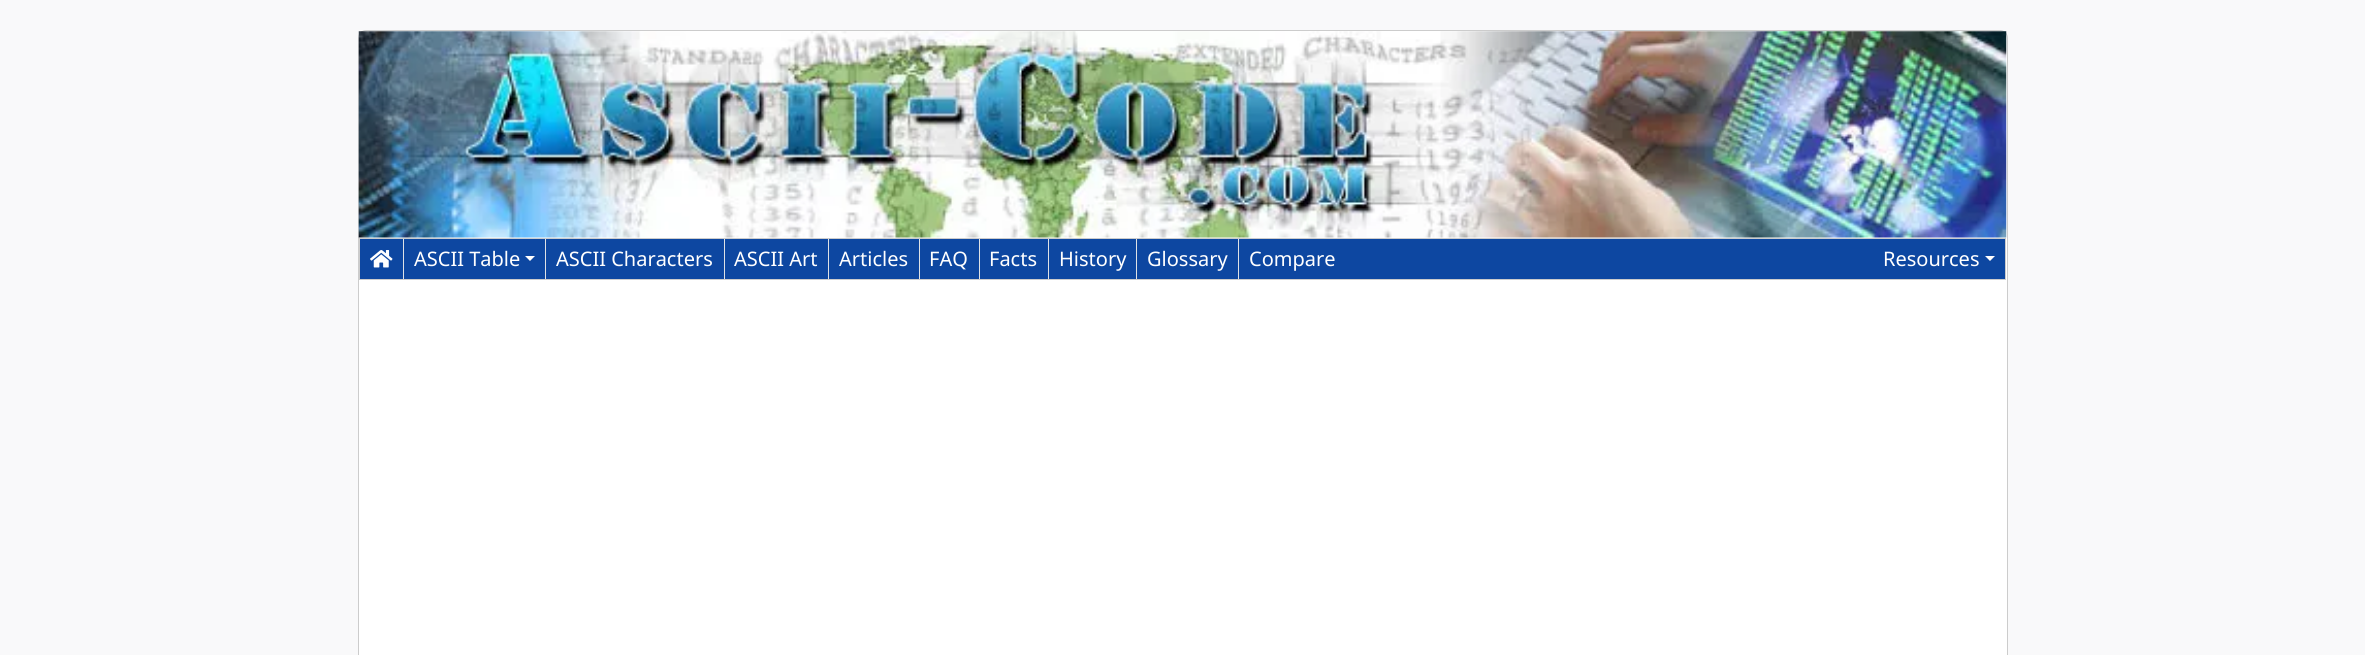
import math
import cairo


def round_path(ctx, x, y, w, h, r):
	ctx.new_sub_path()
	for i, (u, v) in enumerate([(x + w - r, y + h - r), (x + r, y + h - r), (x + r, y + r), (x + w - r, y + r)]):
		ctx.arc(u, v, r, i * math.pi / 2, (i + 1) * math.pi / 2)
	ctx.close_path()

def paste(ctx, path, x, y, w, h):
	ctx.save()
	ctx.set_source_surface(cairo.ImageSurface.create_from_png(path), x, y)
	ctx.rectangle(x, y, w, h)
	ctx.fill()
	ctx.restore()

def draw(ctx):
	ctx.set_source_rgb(0.973, 0.976, 0.98)
	ctx.paint()
	ctx.set_source_rgb(1, 1, 1)
	round_path(ctx, 358.5, 30.5, 1649, 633, 7.5)
	ctx.fill_preserve()
	ctx.set_source_rgb(0.8, 0.8, 0.8)
	ctx.set_line_width(1)
	ctx.stroke()
	paste(ctx, 'media/1.png', 358, 31, 1649, 207)
	ctx.set_source_rgb(0.051, 0.278, 0.631)
	ctx.rectangle(359.5, 238.5, 1646, 41)
	ctx.fill_preserve()
	ctx.set_source_rgb(0.8, 0.8, 0.8)
	ctx.stroke()
	ctx.set_source_rgb(0.871, 0.886, 0.902)
	ctx.rectangle(403, 239, 1, 40)
	ctx.fill()
	paste(ctx, 'media/2.png', 370, 250, 23, 18)
	ctx.select_font_face('Noto Sans')
	ctx.set_font_size(20)
	ctx.set_source_rgb(1, 1, 1)
	ctx.move_to(414, 266)
	ctx.show_text('ASCII Table')
	ctx.new_path()
	ctx.move_to(525, 256)
	ctx.line_to(535, 256)
	ctx.line_to(530, 261)
	ctx.close_path()
	ctx.fill()
	ctx.set_source_rgb(0.871, 0.886, 0.902)
	ctx.rectangle(545, 239, 1, 40)
	ctx.fill()
	ctx.set_source_rgb(1, 1, 1)
	ctx.move_to(556, 266)
	ctx.show_text('ASCII Characters')
	ctx.set_source_rgb(0.871, 0.886, 0.902)
	ctx.rectangle(724, 239, 1, 40)
	ctx.fill()
	ctx.set_source_rgb(1, 1, 1)
	ctx.move_to(734, 266)
	ctx.show_text('ASCII Art')
	ctx.set_source_rgb(0.871, 0.886, 0.902)
	ctx.rectangle(828, 239, 1, 40)
	ctx.fill()
	ctx.set_source_rgb(1, 1, 1)
	ctx.move_to(839, 266)
	ctx.show_text('Articles')
	ctx.set_source_rgb(0.871, 0.886, 0.902)
	ctx.rectangle(919, 239, 1, 40)
	ctx.fill()
	ctx.set_source_rgb(1, 1, 1)
	ctx.move_to(929, 266)
	ctx.show_text('FAQ')
	ctx.set_source_rgb(0.871, 0.886, 0.902)
	ctx.rectangle(979, 239, 1, 40)
	ctx.fill()
	ctx.set_source_rgb(1, 1, 1)
	ctx.move_to(989, 266)
	ctx.show_text('Facts')
	ctx.set_source_rgb(0.871, 0.886, 0.902)
	ctx.rectangle(1048, 239, 1, 40)
	ctx.fill()
	ctx.set_source_rgb(1, 1, 1)
	ctx.move_to(1059, 266)
	ctx.show_text('History')
	ctx.set_source_rgb(0.871, 0.886, 0.902)
	ctx.rectangle(1136, 239, 1, 40)
	ctx.fill()
	ctx.set_source_rgb(1, 1, 1)
	ctx.move_to(1147, 266)
	ctx.show_text('Glossary')
	ctx.set_source_rgb(0.871, 0.886, 0.902)
	ctx.rectangle(1238, 239, 1, 40)
	ctx.fill()
	ctx.set_source_rgb(1, 1, 1)
	ctx.move_to(1249, 266)
	ctx.show_text('Compare')
	ctx.move_to(1883, 266)
	ctx.show_text('Resources')
	ctx.new_path()
	ctx.move_to(1985, 256)
	ctx.line_to(1995, 256)
	ctx.line_to(1990, 261)
	ctx.close_path()
	ctx.fill()


surface = cairo.ImageSurface(cairo.FORMAT_RGB24, 2365, 655)
ctx = cairo.Context(surface)
options = cairo.FontOptions()
options.set_hint_metrics(cairo.HINT_METRICS_OFF)
options.set_hint_style(cairo.HINT_STYLE_NONE)
ctx.set_font_options(options)
ctx.set_miter_limit(4)
draw(ctx)
surface.write_to_png('image.png')
